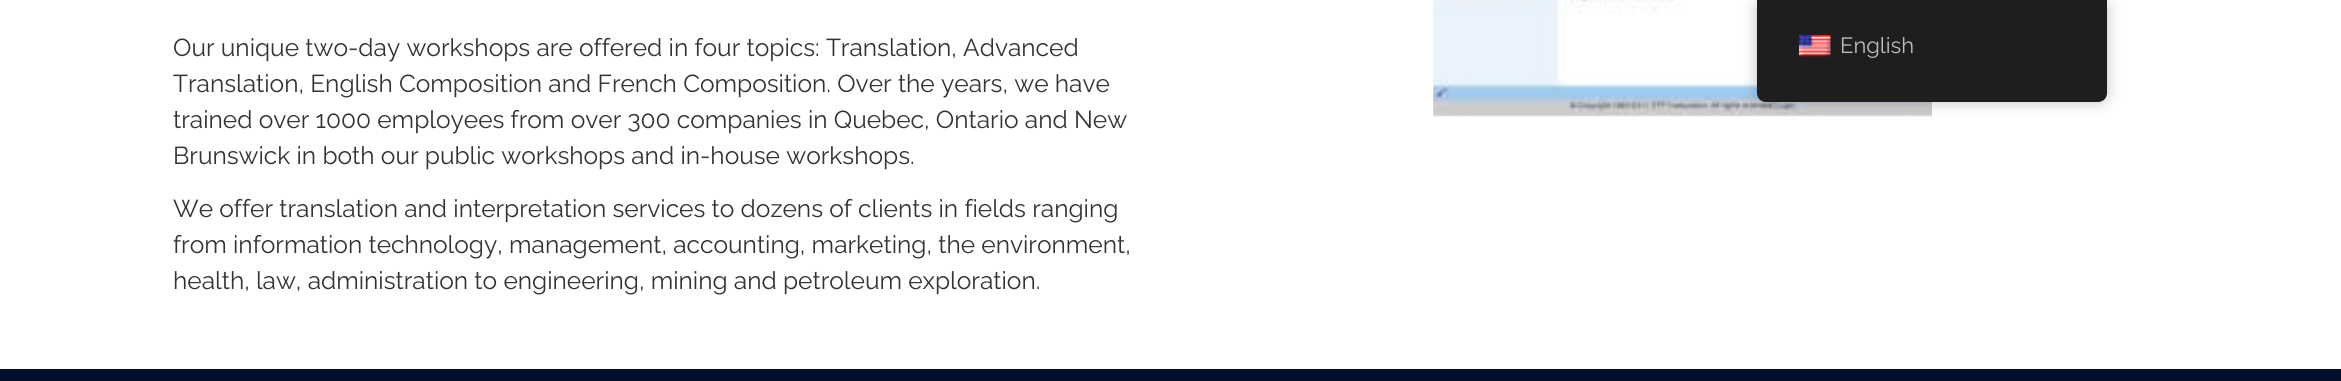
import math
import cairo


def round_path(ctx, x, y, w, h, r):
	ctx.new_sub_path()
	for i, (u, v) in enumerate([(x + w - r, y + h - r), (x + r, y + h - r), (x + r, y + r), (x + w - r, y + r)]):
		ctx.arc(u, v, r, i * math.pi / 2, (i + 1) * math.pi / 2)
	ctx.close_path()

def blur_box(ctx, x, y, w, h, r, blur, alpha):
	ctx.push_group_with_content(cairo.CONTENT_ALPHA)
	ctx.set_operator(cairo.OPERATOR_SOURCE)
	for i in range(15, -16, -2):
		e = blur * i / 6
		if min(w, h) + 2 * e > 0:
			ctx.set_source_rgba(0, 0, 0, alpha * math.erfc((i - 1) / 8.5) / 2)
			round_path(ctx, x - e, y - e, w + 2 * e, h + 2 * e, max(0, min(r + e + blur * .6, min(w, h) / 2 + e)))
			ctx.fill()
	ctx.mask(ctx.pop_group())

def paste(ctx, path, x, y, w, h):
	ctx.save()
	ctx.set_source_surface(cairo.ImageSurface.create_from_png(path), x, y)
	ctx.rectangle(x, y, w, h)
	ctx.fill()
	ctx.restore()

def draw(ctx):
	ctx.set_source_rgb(1, 1, 1)
	ctx.paint()
	ctx.select_font_face('Raleway Thin')
	ctx.set_font_size(24.5)
	ctx.set_source_rgb(0.2, 0.2, 0.2)
	for x, y, s in [
		(173, 56, 'Our unique two-day workshops are offered in four topics: Translation, Advanced'),
		(173, 92, 'Translation, English Composition and French Composition. Over the years, we have'),
		(173, 128, 'trained over 1000 employees from over 300 companies in Quebec, Ontario and New'),
		(173, 164, 'Brunswick in both our public workshops and in-house workshops.'),
		(173, 217, 'We offer translation and interpretation services to dozens of clients in fields ranging'),
		(173, 253, 'from information technology, management, accounting, marketing, the environment,'),
		(173, 289, 'health, law, administration to engineering, mining and petroleum exploration.'),
	]:
		ctx.move_to(x, y)
		ctx.show_text(s)
	paste(ctx, 'media/1.png', 1433, 0, 499, 117)
	ctx.set_source_rgb(0, 0.063, 0.176)
	ctx.rectangle(0, 369, 2341, 12)
	ctx.fill()
	ctx.set_source_rgb(0, 0, 0)
	blur_box(ctx, 1757, 0, 350, 102, 9, 7, 0.25)
	ctx.set_source_rgb(0.118, 0.118, 0.118)
	ctx.new_path()
	ctx.move_to(1757, 0)
	ctx.line_to(2107, 0)
	ctx.line_to(2107, 93)
	ctx.curve_to(2107, 98, 2103, 102, 2098, 102)
	ctx.line_to(1766, 102)
	ctx.curve_to(1761, 102, 1757, 98, 1757, 93)
	ctx.close_path()
	ctx.fill()
	paste(ctx, 'media/2.png', 1799, 35, 32, 22)
	ctx.set_font_size(22)
	ctx.set_source_rgb(0.741, 0.741, 0.741)
	ctx.move_to(1840, 53)
	ctx.show_text('English')


surface = cairo.ImageSurface(cairo.FORMAT_RGB24, 2341, 381)
ctx = cairo.Context(surface)
options = cairo.FontOptions()
options.set_hint_metrics(cairo.HINT_METRICS_OFF)
options.set_hint_style(cairo.HINT_STYLE_NONE)
ctx.set_font_options(options)
ctx.set_miter_limit(4)
draw(ctx)
surface.write_to_png('image.png')
